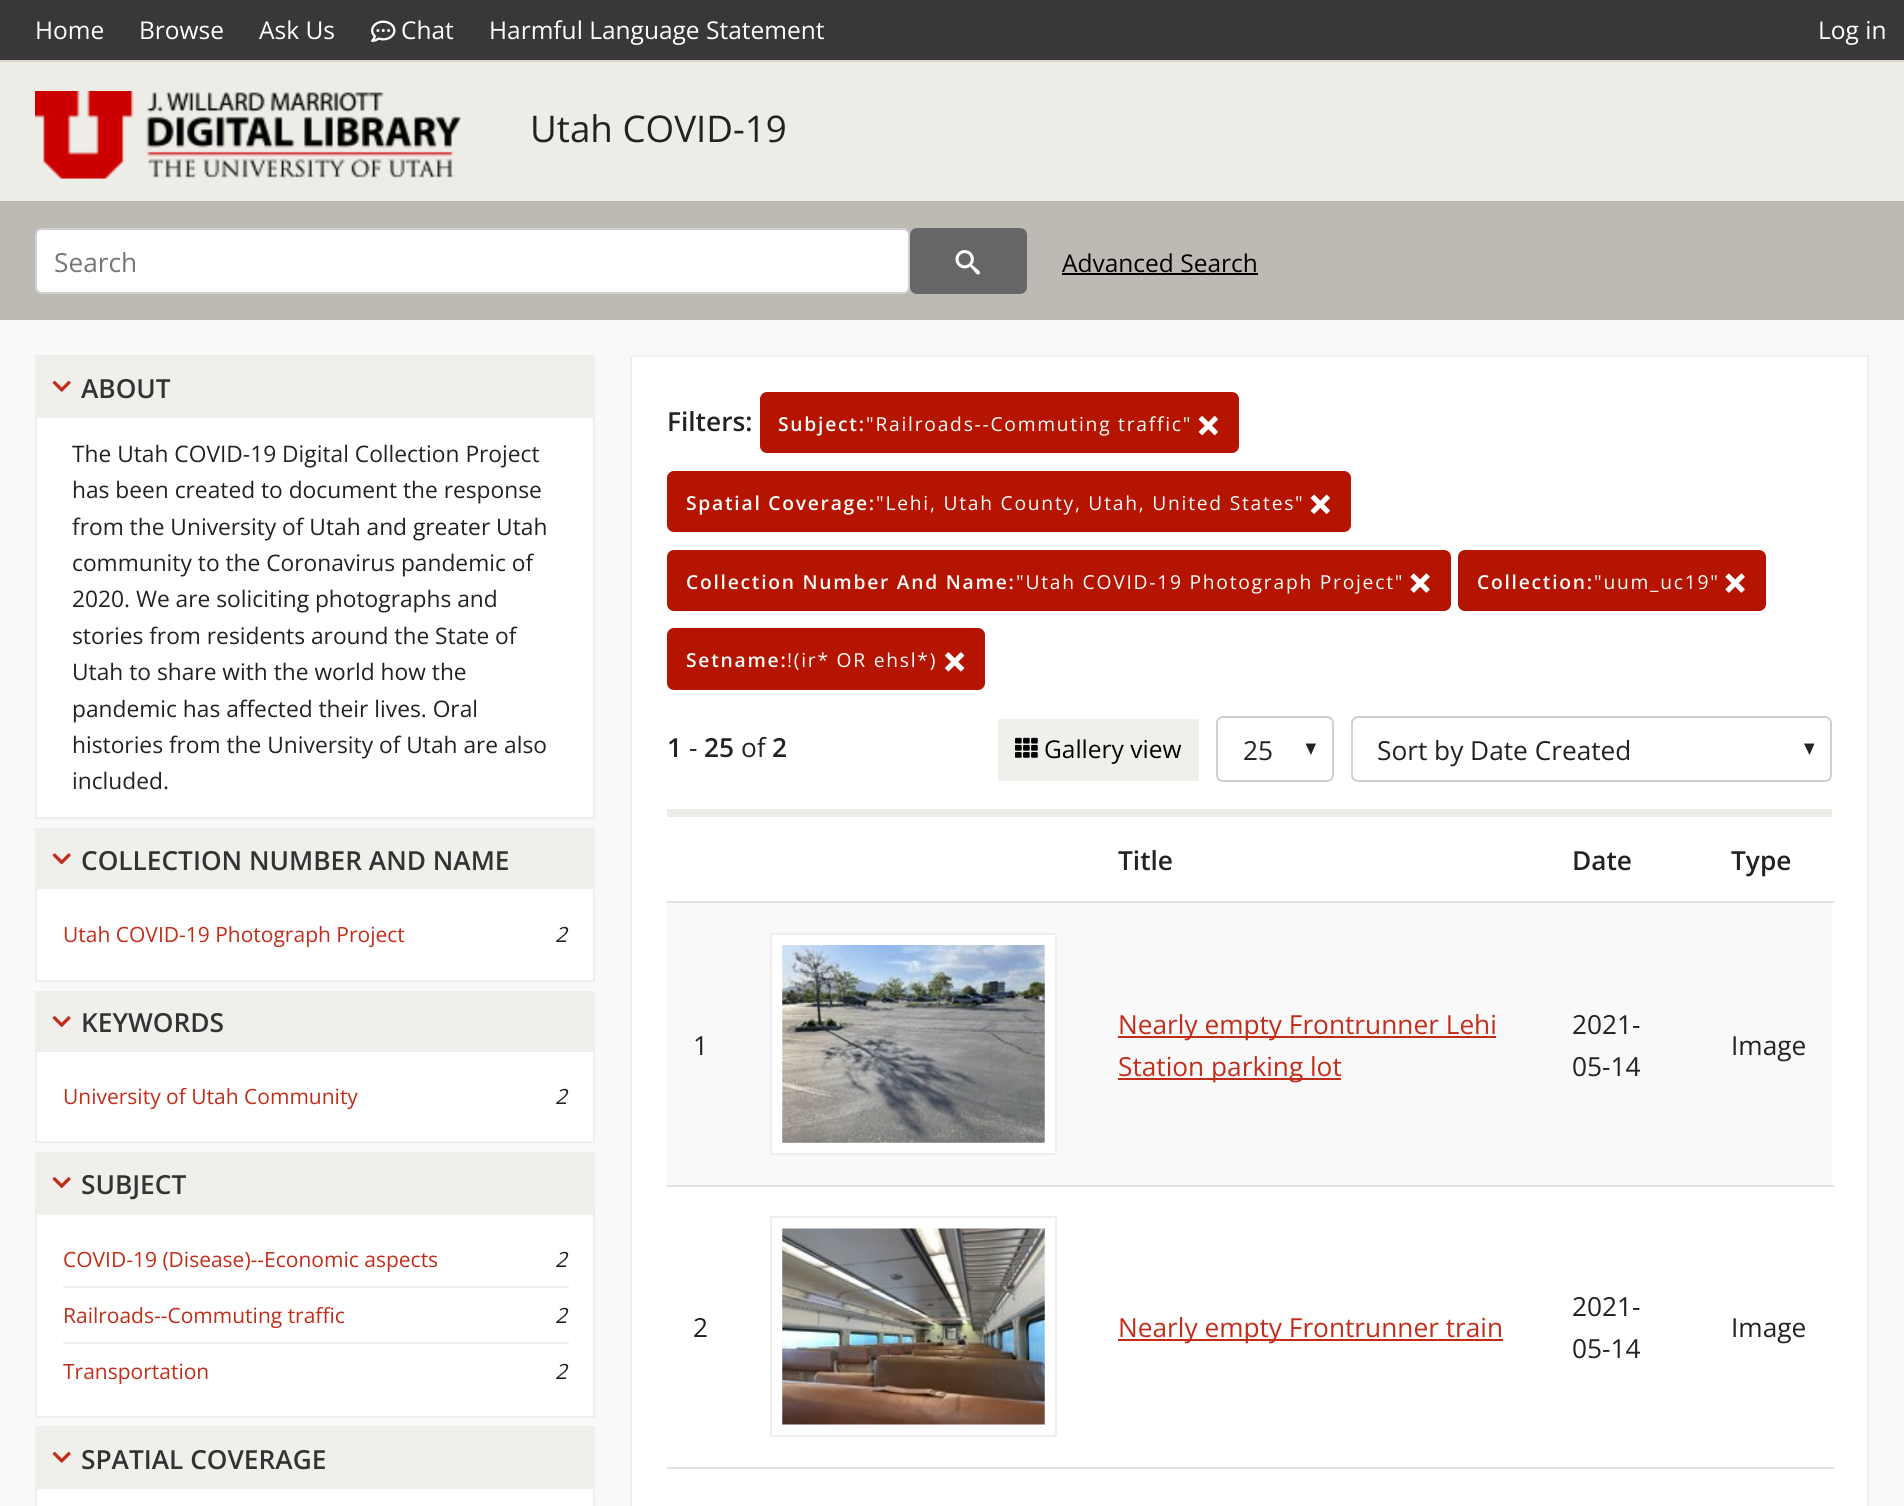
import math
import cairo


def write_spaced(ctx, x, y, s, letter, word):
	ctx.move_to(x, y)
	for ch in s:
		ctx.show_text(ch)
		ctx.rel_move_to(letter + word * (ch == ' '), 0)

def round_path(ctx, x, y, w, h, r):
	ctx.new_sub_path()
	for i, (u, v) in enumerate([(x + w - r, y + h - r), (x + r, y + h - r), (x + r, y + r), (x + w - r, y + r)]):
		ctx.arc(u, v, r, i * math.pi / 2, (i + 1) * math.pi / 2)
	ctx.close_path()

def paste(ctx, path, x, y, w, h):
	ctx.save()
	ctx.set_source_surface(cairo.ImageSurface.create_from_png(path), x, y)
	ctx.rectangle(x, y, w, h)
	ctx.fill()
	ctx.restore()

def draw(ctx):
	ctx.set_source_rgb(0.973, 0.973, 0.969)
	ctx.paint()
	ctx.set_source_rgb(0.22, 0.216, 0.224)
	ctx.rectangle(0, 0, 1904, 60)
	ctx.fill()
	ctx.select_font_face('Open Sans')
	ctx.set_font_size(24.5)
	ctx.set_source_rgb(1, 1, 1)
	for x, y, s in [
		(35, 39, 'Home'),
		(139, 39, 'Browse'),
		(259, 39, 'Ask Us'),
	]:
		ctx.move_to(x, y)
		ctx.show_text(s)
	paste(ctx, 'media/1.png', 371, 20, 25, 22)
	for x, y, s in [
		(401, 39, 'Chat'),
		(489, 39, 'Harmful Language Statement'),
		(1818, 39, 'Log in'),
	]:
		ctx.move_to(x, y)
		ctx.show_text(s)
	ctx.set_source_rgb(0.929, 0.922, 0.906)
	ctx.rectangle(0, 62, 1904, 139)
	ctx.fill()
	ctx.set_source_rgb(0.847, 0.824, 0.788)
	ctx.rectangle(0, 60, 1904, 2)
	ctx.fill()
	paste(ctx, 'media/2.png', 35, 91, 426, 88)
	ctx.set_font_size(36.75)
	ctx.set_source_rgb(0.133, 0.133, 0.133)
	ctx.move_to(530, 142)
	ctx.show_text('Utah COVID-19')
	ctx.set_source_rgb(0.741, 0.729, 0.706)
	ctx.rectangle(0, 201, 1904, 119)
	ctx.fill()
	ctx.set_source_rgb(1, 1, 1)
	round_path(ctx, 36, 229, 873, 64, 6)
	ctx.fill_preserve()
	ctx.set_source_rgb(0.82, 0.82, 0.82)
	ctx.stroke()
	ctx.set_font_size(26.25)
	ctx.set_source_rgb(0.459, 0.459, 0.459)
	ctx.move_to(54, 272)
	ctx.show_text('Search')
	ctx.set_source_rgb(0.4, 0.4, 0.4)
	round_path(ctx, 911, 229, 115, 64, 6)
	ctx.fill_preserve()
	ctx.stroke()
	paste(ctx, 'media/3.png', 955, 250, 25, 25)
	ctx.set_font_size(24.5)
	ctx.set_source_rgb(0, 0, 0)
	ctx.move_to(1062, 272)
	ctx.show_text('Advanced Search')
	ctx.rectangle(1062, 273, 196, 2)
	ctx.fill()
	ctx.set_source_rgb(1, 1, 1)
	ctx.rectangle(37, 418, 556, 399)
	ctx.fill()
	ctx.rectangle(36, 356, 558, 462)
	ctx.set_source_rgb(0.933, 0.933, 0.933)
	ctx.stroke()
	ctx.set_source_rgb(0.941, 0.937, 0.925)
	ctx.rectangle(37, 357, 556, 61)
	ctx.fill()
	paste(ctx, 'media/4.png', 52, 380, 19, 12)
	ctx.select_font_face('Open Sans SemiBold')
	ctx.set_font_size(26.25)
	ctx.set_source_rgb(0.2, 0.2, 0.2)
	ctx.move_to(81, 398)
	ctx.show_text('ABOUT')
	ctx.select_font_face('Open Sans')
	ctx.set_font_size(22.75)
	ctx.set_source_rgb(0.133, 0.133, 0.133)
	for x, y, s in [
		(72, 462, 'The Utah COVID-19 Digital Collection Project'),
		(72, 498, 'has been created to document the response'),
		(72, 535, 'from the University of Utah and greater Utah'),
		(72, 571, 'community to the Coronavirus pandemic of'),
		(72, 607, '2020. We are soliciting photographs and'),
		(72, 644, 'stories from residents around the State of'),
		(72, 680, 'Utah to share with the world how the'),
		(72, 717, 'pandemic has affected their lives. Oral'),
		(72, 753, 'histories from the University of Utah are also'),
		(72, 789, 'included.'),
	]:
		ctx.move_to(x, y)
		ctx.show_text(s)
	ctx.set_source_rgb(1, 1, 1)
	ctx.rectangle(37, 889, 556, 91)
	ctx.fill()
	ctx.rectangle(36, 829, 558, 152)
	ctx.set_source_rgb(0.933, 0.933, 0.933)
	ctx.stroke()
	ctx.set_source_rgb(0.941, 0.937, 0.925)
	ctx.rectangle(37, 830, 556, 59)
	ctx.fill()
	paste(ctx, 'media/5.png', 52, 853, 19, 12)
	ctx.select_font_face('Open Sans SemiBold')
	ctx.set_font_size(26.25)
	ctx.set_source_rgb(0.2, 0.2, 0.2)
	ctx.move_to(81, 870)
	ctx.show_text('COLLECTION NUMBER AND NAME')
	ctx.select_font_face('Open Sans')
	ctx.set_font_size(21)
	ctx.set_source_rgb(0.761, 0.176, 0.098)
	ctx.move_to(63, 942)
	ctx.show_text('Utah COVID-19 Photograph Project')
	ctx.select_font_face('Open Sans', cairo.FONT_SLANT_ITALIC)
	ctx.set_source_rgb(0.133, 0.133, 0.133)
	ctx.move_to(555, 942)
	ctx.show_text('2')
	ctx.set_source_rgb(1, 1, 1)
	ctx.rectangle(37, 1052, 556, 89)
	ctx.fill()
	ctx.rectangle(36, 992, 558, 150)
	ctx.set_source_rgb(0.933, 0.933, 0.933)
	ctx.stroke()
	ctx.set_source_rgb(0.941, 0.937, 0.925)
	ctx.rectangle(37, 993, 556, 59)
	ctx.fill()
	paste(ctx, 'media/6.png', 52, 1016, 19, 11)
	ctx.select_font_face('Open Sans SemiBold')
	ctx.set_font_size(26.25)
	ctx.set_source_rgb(0.2, 0.2, 0.2)
	ctx.move_to(81, 1032)
	ctx.show_text('KEYWORDS')
	ctx.select_font_face('Open Sans')
	ctx.set_font_size(21)
	ctx.set_source_rgb(0.761, 0.176, 0.098)
	ctx.move_to(63, 1104)
	ctx.show_text('University of Utah Community')
	ctx.select_font_face('Open Sans', cairo.FONT_SLANT_ITALIC)
	ctx.set_source_rgb(0.133, 0.133, 0.133)
	ctx.move_to(555, 1104)
	ctx.show_text('2')
	ctx.set_source_rgb(1, 1, 1)
	ctx.rectangle(37, 1215, 556, 201)
	ctx.fill()
	ctx.rectangle(36, 1153, 558, 264)
	ctx.set_source_rgb(0.933, 0.933, 0.933)
	ctx.stroke()
	ctx.set_source_rgb(0.941, 0.937, 0.925)
	ctx.rectangle(37, 1154, 556, 61)
	ctx.fill()
	paste(ctx, 'media/6.png', 52, 1177, 19, 11)
	ctx.select_font_face('Open Sans SemiBold')
	ctx.set_font_size(26.25)
	ctx.set_source_rgb(0.2, 0.2, 0.2)
	ctx.move_to(81, 1194)
	ctx.show_text('SUBJECT')
	ctx.set_source_rgb(0.933, 0.933, 0.933)
	ctx.rectangle(63, 1286, 506, 2)
	ctx.fill()
	ctx.select_font_face('Open Sans')
	ctx.set_font_size(21)
	ctx.set_source_rgb(0.761, 0.176, 0.098)
	ctx.move_to(63, 1267)
	ctx.show_text('COVID-19 (Disease)--Economic aspects')
	ctx.select_font_face('Open Sans', cairo.FONT_SLANT_ITALIC)
	ctx.set_source_rgb(0.133, 0.133, 0.133)
	ctx.move_to(555, 1267)
	ctx.show_text('2')
	ctx.set_source_rgb(0.933, 0.933, 0.933)
	ctx.rectangle(63, 1342, 506, 2)
	ctx.fill()
	ctx.select_font_face('Open Sans')
	ctx.set_source_rgb(0.761, 0.176, 0.098)
	ctx.move_to(63, 1323)
	ctx.show_text('Railroads--Commuting traffic')
	ctx.select_font_face('Open Sans', cairo.FONT_SLANT_ITALIC)
	ctx.set_source_rgb(0.133, 0.133, 0.133)
	ctx.move_to(555, 1323)
	ctx.show_text('2')
	ctx.select_font_face('Open Sans')
	ctx.set_source_rgb(0.761, 0.176, 0.098)
	ctx.move_to(63, 1379)
	ctx.show_text('Transportation')
	ctx.select_font_face('Open Sans', cairo.FONT_SLANT_ITALIC)
	ctx.set_source_rgb(0.133, 0.133, 0.133)
	ctx.move_to(555, 1379)
	ctx.show_text('2')
	ctx.set_source_rgb(1, 1, 1)
	ctx.rectangle(37, 1489, 556, 17)
	ctx.fill()
	ctx.rectangle(36, 1427, 558, 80)
	ctx.set_source_rgb(0.933, 0.933, 0.933)
	ctx.stroke()
	ctx.set_source_rgb(0.941, 0.937, 0.925)
	ctx.rectangle(37, 1428, 556, 61)
	ctx.fill()
	paste(ctx, 'media/4.png', 52, 1451, 19, 12)
	ctx.select_font_face('Open Sans SemiBold')
	ctx.set_font_size(26.25)
	ctx.set_source_rgb(0.2, 0.2, 0.2)
	ctx.move_to(81, 1469)
	ctx.show_text('SPATIAL COVERAGE')
	ctx.set_source_rgb(1, 1, 1)
	ctx.rectangle(631, 356, 1237, 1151)
	ctx.fill_preserve()
	ctx.set_source_rgb(0.933, 0.933, 0.933)
	ctx.stroke()
	ctx.set_source_rgb(0.133, 0.133, 0.133)
	ctx.move_to(667, 431)
	ctx.show_text('Filters:')
	ctx.set_source_rgb(0.71, 0.082, 0)
	round_path(ctx, 761, 393, 477, 59, 6)
	ctx.fill_preserve()
	ctx.stroke()
	ctx.set_font_size(19.25)
	ctx.set_source_rgb(1, 1, 1)
	write_spaced(ctx, 778, 431, 'Subject:', 1.75, 0)
	ctx.select_font_face('Open Sans')
	write_spaced(ctx, 866, 431, '"Railroads--Commuting traffic"', 1.75, 0)
	paste(ctx, 'media/7.png', 1198, 416, 20, 20)
	ctx.set_source_rgb(0.71, 0.082, 0)
	round_path(ctx, 668, 472, 682, 59, 6)
	ctx.fill_preserve()
	ctx.stroke()
	ctx.select_font_face('Open Sans SemiBold')
	ctx.set_source_rgb(1, 1, 1)
	write_spaced(ctx, 686, 510, 'Spatial Coverage:', 1.75, 0)
	ctx.select_font_face('Open Sans')
	write_spaced(ctx, 876, 510, '"Lehi, Utah County, Utah, United States"', 1.75, 0)
	paste(ctx, 'media/8.png', 1310, 494, 20, 20)
	ctx.set_source_rgb(0.71, 0.082, 0)
	round_path(ctx, 668, 551, 782, 59, 6)
	ctx.fill_preserve()
	ctx.stroke()
	ctx.select_font_face('Open Sans SemiBold')
	ctx.set_source_rgb(1, 1, 1)
	write_spaced(ctx, 686, 589, 'Collection Number And Name:', 1.75, 0)
	ctx.select_font_face('Open Sans')
	write_spaced(ctx, 1016, 589, '"Utah COVID-19 Photograph Project"', 1.75, 0)
	paste(ctx, 'media/9.png', 1410, 573, 20, 20)
	ctx.set_source_rgb(0.71, 0.082, 0)
	round_path(ctx, 1459, 551, 306, 59, 6)
	ctx.fill_preserve()
	ctx.stroke()
	ctx.select_font_face('Open Sans SemiBold')
	ctx.set_source_rgb(1, 1, 1)
	write_spaced(ctx, 1477, 589, 'Collection:', 1.75, 0)
	ctx.select_font_face('Open Sans')
	write_spaced(ctx, 1594, 589, '"uum_uc19"', 1.75, 0)
	paste(ctx, 'media/9.png', 1725, 573, 20, 20)
	ctx.set_source_rgb(0.71, 0.082, 0)
	round_path(ctx, 668, 629, 316, 60, 6)
	ctx.fill_preserve()
	ctx.stroke()
	ctx.select_font_face('Open Sans SemiBold')
	ctx.set_source_rgb(1, 1, 1)
	write_spaced(ctx, 686, 667, 'Setname:', 1.75, 0)
	ctx.select_font_face('Open Sans')
	write_spaced(ctx, 787, 667, '!(ir* OR ehsl*)', 1.75, 0)
	paste(ctx, 'media/10.png', 945, 652, 20, 20)
	ctx.set_source_rgb(0.929, 0.922, 0.906)
	ctx.rectangle(667, 809, 1165, 8)
	ctx.fill()
	ctx.select_font_face('Open Sans SemiBold')
	ctx.set_font_size(26.25)
	ctx.set_source_rgb(0.133, 0.133, 0.133)
	ctx.move_to(667, 757)
	ctx.show_text('1')
	ctx.select_font_face('Open Sans')
	ctx.move_to(689, 757)
	ctx.show_text('-')
	ctx.select_font_face('Open Sans SemiBold')
	ctx.move_to(704, 757)
	ctx.show_text('25')
	ctx.select_font_face('Open Sans')
	ctx.move_to(741, 757)
	ctx.show_text('of')
	ctx.select_font_face('Open Sans SemiBold')
	ctx.move_to(772, 757)
	ctx.show_text('2')
	ctx.set_source_rgb(0.941, 0.937, 0.925)
	ctx.rectangle(998, 719, 201, 62)
	ctx.fill()
	paste(ctx, 'media/11.png', 1015, 737, 23, 21)
	ctx.select_font_face('Open Sans')
	ctx.set_font_size(24.5)
	ctx.set_source_rgb(0, 0, 0)
	ctx.move_to(1044, 758)
	ctx.show_text('Gallery view')
	ctx.set_source_rgb(0.133, 0.133, 0.133)
	ctx.new_path()
	ctx.move_to(1305.5, 743.5)
	ctx.line_to(1311, 755)
	ctx.line_to(1316, 743.5)
	ctx.fill()
	round_path(ctx, 1217, 717, 116, 64, 6)
	ctx.set_source_rgb(0.82, 0.82, 0.82)
	ctx.stroke()
	ctx.set_font_size(26.25)
	ctx.set_source_rgb(0.133, 0.133, 0.133)
	ctx.move_to(1243, 760)
	ctx.show_text('25')
	ctx.new_path()
	ctx.move_to(1804, 743.5)
	ctx.line_to(1809.5, 755)
	ctx.line_to(1814.5, 743.5)
	ctx.fill()
	round_path(ctx, 1352, 717, 479, 64, 6)
	ctx.set_source_rgb(0.82, 0.82, 0.82)
	ctx.stroke()
	ctx.set_source_rgb(0.133, 0.133, 0.133)
	ctx.move_to(1377, 760)
	ctx.show_text('Sort by Date Created')
	ctx.select_font_face('Open Sans SemiBold')
	ctx.move_to(1118, 870)
	ctx.show_text('Title')
	ctx.move_to(1572, 870)
	ctx.show_text('Date')
	ctx.set_source_rgb(0.882, 0.882, 0.882)
	ctx.rectangle(667, 901, 1167, 2)
	ctx.fill()
	ctx.set_source_rgb(0.133, 0.133, 0.133)
	ctx.move_to(1731, 870)
	ctx.show_text('Type')
	ctx.set_source_rgb(0.973, 0.973, 0.973)
	ctx.rectangle(667, 903, 1165, 282)
	ctx.fill()
	ctx.select_font_face('Open Sans')
	ctx.set_source_rgb(0.133, 0.133, 0.133)
	ctx.move_to(693, 1055)
	ctx.show_text('1')
	ctx.set_source_rgb(1, 1, 1)
	ctx.rectangle(771, 934, 285, 220)
	ctx.fill_preserve()
	ctx.set_source_rgb(0.933, 0.933, 0.933)
	ctx.stroke()
	paste(ctx, 'media/12.png', 782, 945, 263, 198)
	ctx.set_source_rgb(0.761, 0.176, 0.098)
	ctx.rectangle(1118, 1036, 378, 2)
	ctx.fill()
	ctx.move_to(1118, 1034)
	ctx.show_text('Nearly empty Frontrunner Lehi')
	ctx.rectangle(1118, 1078, 223, 2)
	ctx.fill()
	ctx.move_to(1118, 1076)
	ctx.show_text('Station parking lot')
	ctx.set_source_rgb(0.133, 0.133, 0.133)
	ctx.move_to(1572, 1034)
	ctx.show_text('2021-')
	ctx.move_to(1572, 1076)
	ctx.show_text('05-14')
	ctx.set_source_rgb(0.882, 0.882, 0.882)
	ctx.rectangle(667, 1185, 1167, 2)
	ctx.fill()
	ctx.set_source_rgb(0.133, 0.133, 0.133)
	ctx.move_to(1731, 1055)
	ctx.show_text('Image')
	ctx.move_to(693, 1337)
	ctx.show_text('2')
	ctx.rectangle(771, 1217, 285, 219)
	ctx.set_source_rgb(0.933, 0.933, 0.933)
	ctx.stroke()
	paste(ctx, 'media/13.png', 782, 1228, 263, 197)
	ctx.set_source_rgb(0.761, 0.176, 0.098)
	ctx.rectangle(1118, 1339, 385, 2)
	ctx.fill()
	ctx.move_to(1118, 1337)
	ctx.show_text('Nearly empty Frontrunner train')
	ctx.set_source_rgb(0.133, 0.133, 0.133)
	ctx.move_to(1572, 1316)
	ctx.show_text('2021-')
	ctx.move_to(1572, 1358)
	ctx.show_text('05-14')
	ctx.set_source_rgb(0.882, 0.882, 0.882)
	ctx.rectangle(667, 1467, 1167, 2)
	ctx.fill()
	ctx.set_source_rgb(0.133, 0.133, 0.133)
	ctx.move_to(1731, 1337)
	ctx.show_text('Image')


surface = cairo.ImageSurface(cairo.FORMAT_RGB24, 1904, 1506)
ctx = cairo.Context(surface)
options = cairo.FontOptions()
options.set_hint_metrics(cairo.HINT_METRICS_OFF)
options.set_hint_style(cairo.HINT_STYLE_NONE)
ctx.set_font_options(options)
ctx.set_miter_limit(4)
draw(ctx)
surface.write_to_png('image.png')
